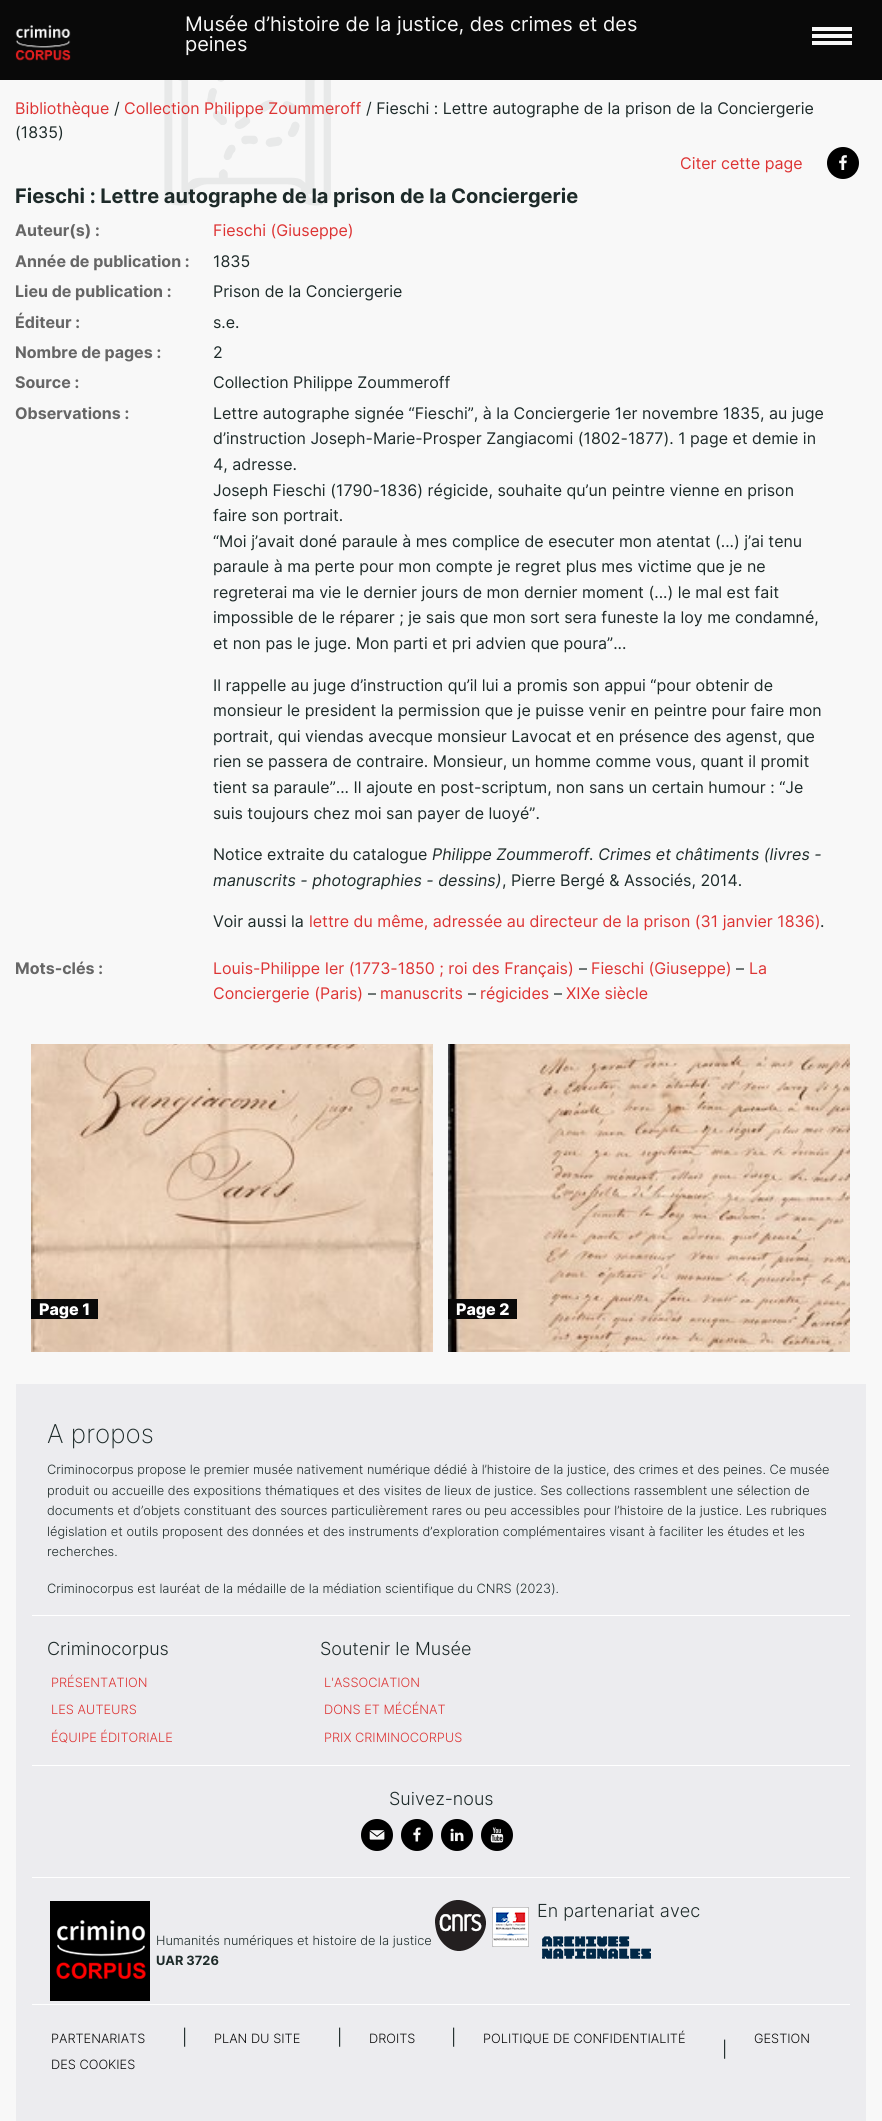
import math
import cairo


def paste(ctx, path, x, y, w, h):
	ctx.save()
	ctx.set_source_surface(cairo.ImageSurface.create_from_png(path), x, y)
	ctx.rectangle(x, y, w, h)
	ctx.fill()
	ctx.restore()

def draw(ctx):
	ctx.set_source_rgb(0.969, 0.969, 0.969)
	ctx.paint()
	ctx.set_source_rgb(0.039, 0.039, 0.039)
	ctx.rectangle(0, 0, 882, 80)
	ctx.fill()
	paste(ctx, 'media/1.png', 15, 25, 56, 36)
	ctx.select_font_face('Inter')
	ctx.set_font_size(20)
	ctx.set_source_rgb(0.969, 0.969, 0.969)
	ctx.move_to(185, 31)
	ctx.show_text('Musée d’histoire de la justice, des crimes et des')
	ctx.move_to(185, 51)
	ctx.show_text('peines')
	ctx.rectangle(812, 41, 40, 4)
	ctx.rectangle(812, 34, 40, 4)
	ctx.rectangle(812, 27, 40, 4)
	ctx.fill()
	paste(ctx, 'media/2.png', 164, 80, 167, 126)
	ctx.set_font_size(16)
	ctx.set_source_rgb(0.867, 0.2, 0.2)
	ctx.move_to(15, 114)
	ctx.show_text('Bibliothèque')
	ctx.set_source_rgb(0.114, 0.165, 0.161)
	ctx.move_to(114, 114)
	ctx.show_text('/')
	ctx.set_source_rgb(0.867, 0.2, 0.2)
	ctx.move_to(124, 114)
	ctx.show_text('Collection Philippe Zoummeroff')
	ctx.set_source_rgb(0.114, 0.165, 0.161)
	ctx.move_to(366, 114)
	ctx.show_text('/ Fieschi : Lettre autographe de la prison de la Conciergerie')
	ctx.move_to(15, 138)
	ctx.show_text('(1835)')
	ctx.set_source_rgb(0.867, 0.2, 0.2)
	ctx.move_to(680, 169)
	ctx.show_text('Citer cette page')
	ctx.set_source_rgb(0, 0, 0)
	ctx.new_path()
	ctx.arc(843, 163, 16, 0, 2 * math.pi)
	ctx.fill()
	paste(ctx, 'media/3.png', 839, 155, 8, 15)
	ctx.select_font_face('Inter', cairo.FONT_SLANT_NORMAL, cairo.FONT_WEIGHT_BOLD)
	ctx.set_font_size(20)
	ctx.set_source_rgb(0.114, 0.165, 0.161)
	ctx.move_to(15, 203)
	ctx.show_text('Fieschi : Lettre autographe de la prison de la Conciergerie')
	ctx.set_font_size(16)
	ctx.set_source_rgb(0.4, 0.4, 0.4)
	ctx.move_to(15, 236)
	ctx.show_text('Auteur(s) :')
	ctx.select_font_face('Inter')
	ctx.set_source_rgb(0.867, 0.2, 0.2)
	ctx.move_to(213, 236)
	ctx.show_text('Fieschi (Giuseppe)')
	ctx.select_font_face('Inter', cairo.FONT_SLANT_NORMAL, cairo.FONT_WEIGHT_BOLD)
	ctx.set_source_rgb(0.4, 0.4, 0.4)
	ctx.move_to(15, 267)
	ctx.show_text('Année de publication :')
	ctx.select_font_face('Inter')
	ctx.set_source_rgb(0.114, 0.165, 0.161)
	ctx.move_to(213, 267)
	ctx.show_text('1835')
	ctx.select_font_face('Inter', cairo.FONT_SLANT_NORMAL, cairo.FONT_WEIGHT_BOLD)
	ctx.set_source_rgb(0.4, 0.4, 0.4)
	ctx.move_to(15, 297)
	ctx.show_text('Lieu de publication :')
	ctx.select_font_face('Inter')
	ctx.set_source_rgb(0.114, 0.165, 0.161)
	ctx.move_to(213, 297)
	ctx.show_text('Prison de la Conciergerie')
	ctx.select_font_face('Inter', cairo.FONT_SLANT_NORMAL, cairo.FONT_WEIGHT_BOLD)
	ctx.set_source_rgb(0.4, 0.4, 0.4)
	ctx.move_to(15, 328)
	ctx.show_text('Éditeur :')
	ctx.select_font_face('Inter')
	ctx.set_source_rgb(0.114, 0.165, 0.161)
	ctx.move_to(213, 328)
	ctx.show_text('s.e.')
	ctx.select_font_face('Inter', cairo.FONT_SLANT_NORMAL, cairo.FONT_WEIGHT_BOLD)
	ctx.set_source_rgb(0.4, 0.4, 0.4)
	ctx.move_to(15, 358)
	ctx.show_text('Nombre de pages :')
	ctx.select_font_face('Inter')
	ctx.set_source_rgb(0.114, 0.165, 0.161)
	ctx.move_to(213, 358)
	ctx.show_text('2')
	ctx.select_font_face('Inter', cairo.FONT_SLANT_NORMAL, cairo.FONT_WEIGHT_BOLD)
	ctx.set_source_rgb(0.4, 0.4, 0.4)
	ctx.move_to(15, 388)
	ctx.show_text('Source :')
	ctx.select_font_face('Inter')
	ctx.set_source_rgb(0.114, 0.165, 0.161)
	ctx.move_to(213, 388)
	ctx.show_text('Collection Philippe Zoummeroff')
	ctx.select_font_face('Inter', cairo.FONT_SLANT_NORMAL, cairo.FONT_WEIGHT_BOLD)
	ctx.set_source_rgb(0.4, 0.4, 0.4)
	ctx.move_to(15, 419)
	ctx.show_text('Observations :')
	ctx.select_font_face('Inter')
	ctx.set_source_rgb(0.114, 0.165, 0.161)
	for x, y, s in [
		(213, 419, 'Lettre autographe signée “Fieschi”, à la Conciergerie 1er novembre 1835, au juge'),
		(213, 444, 'd’instruction Joseph-Marie-Prosper Zangiacomi (1802-1877). 1 page et demie in'),
		(213, 470, '4, adresse.'),
		(213, 496, 'Joseph Fieschi (1790-1836) régicide, souhaite qu’un peintre vienne en prison'),
		(213, 521, 'faire son portrait.'),
		(213, 547, '“Moi j’avait doné paraule à mes complice de esecuter mon atentat (...) j’ai tenu'),
		(213, 572, 'paraule à ma perte pour mon compte je regret plus mes victime que je ne'),
		(213, 598, 'regreterai ma vie le dernier jours de mon dernier moment (...) le mal est fait'),
		(213, 623, 'impossible de le réparer ; je sais que mon sort sera funeste la loy me condamné,'),
		(213, 649, 'et non pas le juge. Mon parti et pri advien que poura”...'),
		(213, 691, 'Il rappelle au juge d’instruction qu’il lui a promis son appui “pour obtenir de'),
		(213, 716, 'monsieur le president la permission que je puisse venir en peintre pour faire mon'),
		(213, 742, 'portrait, qui viendas avecque monsieur Lavocat et en présence des agenst, que'),
		(213, 767, 'rien se passera de contraire. Monsieur, un homme comme vous, quant il promit'),
		(213, 793, 'tient sa paraule”... Il ajoute en post-scriptum, non sans un certain humour : “Je'),
		(213, 819, 'suis toujours chez moi san payer de luoyé”.'),
		(213, 860, 'Notice extraite du catalogue'),
	]:
		ctx.move_to(x, y)
		ctx.show_text(s)
	ctx.select_font_face('Inter', cairo.FONT_SLANT_ITALIC)
	ctx.move_to(432, 860)
	ctx.show_text('Philippe Zoummeroff. Crimes et châtiments (livres -')
	ctx.move_to(213, 886)
	ctx.show_text('manuscrits - photographies - dessins)')
	ctx.select_font_face('Inter')
	ctx.move_to(502, 886)
	ctx.show_text(', Pierre Bergé & Associés, 2014.')
	ctx.move_to(213, 927)
	ctx.show_text('Voir aussi la')
	ctx.set_source_rgb(0.867, 0.2, 0.2)
	ctx.move_to(309, 927)
	ctx.show_text('lettre du même, adressée au directeur de la prison (31 janvier 1836)')
	ctx.set_source_rgb(0.114, 0.165, 0.161)
	ctx.move_to(820, 927)
	ctx.show_text('.')
	ctx.select_font_face('Inter', cairo.FONT_SLANT_NORMAL, cairo.FONT_WEIGHT_BOLD)
	ctx.set_source_rgb(0.4, 0.4, 0.4)
	ctx.move_to(15, 974)
	ctx.show_text('Mots-clés :')
	ctx.select_font_face('Inter')
	ctx.set_source_rgb(0.867, 0.2, 0.2)
	ctx.move_to(213, 974)
	ctx.show_text('Louis-Philippe Ier (1773-1850 ; roi des Français)')
	ctx.set_source_rgb(0.114, 0.165, 0.161)
	ctx.move_to(579, 974)
	ctx.show_text('–')
	ctx.set_source_rgb(0.867, 0.2, 0.2)
	ctx.move_to(591, 974)
	ctx.show_text('Fieschi (Giuseppe)')
	ctx.set_source_rgb(0.114, 0.165, 0.161)
	ctx.move_to(736, 974)
	ctx.show_text('–')
	ctx.set_source_rgb(0.867, 0.2, 0.2)
	ctx.move_to(749, 974)
	ctx.show_text('La')
	ctx.move_to(213, 999)
	ctx.show_text('Conciergerie (Paris)')
	ctx.set_source_rgb(0.114, 0.165, 0.161)
	ctx.move_to(368, 999)
	ctx.show_text('–')
	ctx.set_source_rgb(0.867, 0.2, 0.2)
	ctx.move_to(380, 999)
	ctx.show_text('manuscrits')
	ctx.set_source_rgb(0.114, 0.165, 0.161)
	ctx.move_to(468, 999)
	ctx.show_text('–')
	ctx.set_source_rgb(0.867, 0.2, 0.2)
	ctx.move_to(480, 999)
	ctx.show_text('régicides')
	ctx.set_source_rgb(0.114, 0.165, 0.161)
	ctx.move_to(554, 999)
	ctx.show_text('–')
	ctx.set_source_rgb(0.867, 0.2, 0.2)
	ctx.move_to(566, 999)
	ctx.show_text('XIXe siècle')
	paste(ctx, 'media/4.png', 31, 1044, 402, 308)
	ctx.set_source_rgb(0.039, 0.039, 0.039)
	ctx.rectangle(31, 1299, 67, 20)
	ctx.fill()
	ctx.select_font_face('Inter ExtraBold')
	ctx.set_source_rgb(1, 1, 1)
	ctx.move_to(39, 1315)
	ctx.show_text('Page 1')
	paste(ctx, 'media/5.png', 448, 1044, 402, 308)
	ctx.set_source_rgb(0.039, 0.039, 0.039)
	ctx.rectangle(448, 1299, 69, 20)
	ctx.fill()
	ctx.set_source_rgb(1, 1, 1)
	ctx.move_to(456, 1315)
	ctx.show_text('Page 2')
	ctx.set_source_rgb(0.925, 0.925, 0.937)
	ctx.rectangle(16, 1384, 850, 737)
	ctx.fill()
	ctx.select_font_face('Inter ExtraLight')
	ctx.set_font_size(26)
	ctx.set_source_rgb(0.114, 0.165, 0.161)
	ctx.move_to(47, 1443)
	ctx.show_text('A propos')
	ctx.select_font_face('Inter Light')
	ctx.set_font_size(12.8)
	for x, y, s in [
		(47, 1474, 'Criminocorpus propose le premier musée nativement numérique dédié à l’histoire de la justice, des crimes et des peines. Ce musée'),
		(47, 1495, 'produit ou accueille des expositions thématiques et des visites de lieux de justice. Ses collections rassemblent une sélection de'),
		(47, 1515, 'documents et d’objets constituant des sources particulièrement rares ou peu accessibles pour l’histoire de la justice. Les rubriques'),
		(47, 1536, 'législation et outils proposent des données et des instruments d’exploration complémentaires visant à faciliter les études et les'),
		(47, 1556, 'recherches.'),
		(47, 1593, 'Criminocorpus est lauréat de la médaille de la médiation scientifique du CNRS (2023).'),
	]:
		ctx.move_to(x, y)
		ctx.show_text(s)
	ctx.set_source_rgb(1, 1, 1)
	ctx.rectangle(32, 1615, 818, 1)
	ctx.fill()
	ctx.set_font_size(18)
	ctx.set_source_rgb(0.114, 0.165, 0.161)
	ctx.move_to(47, 1655)
	ctx.show_text('Criminocorpus')
	ctx.set_font_size(12.8)
	ctx.set_source_rgb(0.867, 0.2, 0.2)
	for x, y, s in [
		(51, 1687, 'PRÉSENTATION'),
		(51, 1714, 'LES AUTEURS'),
		(51, 1742, 'ÉQUIPE ÉDITORIALE'),
	]:
		ctx.move_to(x, y)
		ctx.show_text(s)
	ctx.set_font_size(18)
	ctx.set_source_rgb(0.114, 0.165, 0.161)
	ctx.move_to(320, 1655)
	ctx.show_text('Soutenir le Musée')
	ctx.set_font_size(12.8)
	ctx.set_source_rgb(0.867, 0.2, 0.2)
	for x, y, s in [
		(324, 1687, 'L\'ASSOCIATION'),
		(324, 1714, 'DONS ET MÉCÉNAT'),
		(324, 1742, 'PRIX CRIMINOCORPUS'),
	]:
		ctx.move_to(x, y)
		ctx.show_text(s)
	ctx.set_source_rgb(1, 1, 1)
	ctx.rectangle(32, 1765, 818, 1)
	ctx.fill()
	ctx.set_font_size(18)
	ctx.set_source_rgb(0.114, 0.165, 0.161)
	ctx.move_to(389, 1805)
	ctx.show_text('Suivez-nous')
	ctx.set_source_rgb(0, 0, 0)
	ctx.new_path()
	ctx.arc(377, 1835, 16, 0, 2 * math.pi)
	ctx.fill()
	paste(ctx, 'media/6.png', 369, 1830, 16, 10)
	ctx.arc(417, 1835, 16, 0, 2 * math.pi)
	ctx.fill()
	paste(ctx, 'media/7.png', 413, 1827, 8, 15)
	ctx.arc(457, 1835, 16, 0, 2 * math.pi)
	ctx.fill()
	paste(ctx, 'media/8.png', 450, 1828, 14, 14)
	ctx.arc(497, 1835, 16, 0, 2 * math.pi)
	ctx.fill()
	paste(ctx, 'media/9.png', 490, 1827, 14, 16)
	ctx.set_source_rgb(1, 1, 1)
	ctx.rectangle(32, 1877, 818, 1)
	ctx.fill()
	paste(ctx, 'media/10.png', 435, 1900, 51, 51)
	paste(ctx, 'media/11.png', 492, 1907, 37, 40)
	ctx.set_source_rgb(0.114, 0.165, 0.161)
	ctx.move_to(537, 1917)
	ctx.show_text('En partenariat avec')
	paste(ctx, 'media/12.png', 542, 1936, 109, 23)
	paste(ctx, 'media/13.png', 50, 1901, 100, 100)
	ctx.set_font_size(12.8)
	ctx.move_to(156, 1945)
	ctx.show_text('Humanités numériques et histoire de la justice')
	ctx.select_font_face('Inter', cairo.FONT_SLANT_NORMAL, cairo.FONT_WEIGHT_BOLD)
	ctx.move_to(156, 1965)
	ctx.show_text('UAR 3726')
	ctx.set_source_rgb(1, 1, 1)
	ctx.rectangle(32, 2004, 818, 1)
	ctx.fill()
	ctx.select_font_face('Inter Light')
	ctx.set_source_rgb(0.039, 0.039, 0.039)
	ctx.move_to(51, 2043)
	ctx.show_text('PARTENARIATS')
	ctx.select_font_face('Inter')
	ctx.set_font_size(16)
	ctx.set_source_rgb(0.114, 0.165, 0.161)
	ctx.move_to(182, 2043)
	ctx.show_text('|')
	ctx.select_font_face('Inter Light')
	ctx.set_font_size(12.8)
	ctx.set_source_rgb(0.039, 0.039, 0.039)
	ctx.move_to(214, 2043)
	ctx.show_text('PLAN DU SITE')
	ctx.select_font_face('Inter')
	ctx.set_font_size(16)
	ctx.set_source_rgb(0.114, 0.165, 0.161)
	ctx.move_to(337, 2043)
	ctx.show_text('|')
	ctx.select_font_face('Inter Light')
	ctx.set_font_size(12.8)
	ctx.set_source_rgb(0.039, 0.039, 0.039)
	ctx.move_to(369, 2043)
	ctx.show_text('DROITS')
	ctx.select_font_face('Inter')
	ctx.set_font_size(16)
	ctx.set_source_rgb(0.114, 0.165, 0.161)
	ctx.move_to(451, 2043)
	ctx.show_text('|')
	ctx.select_font_face('Inter Light')
	ctx.set_font_size(12.8)
	ctx.set_source_rgb(0.039, 0.039, 0.039)
	ctx.move_to(483, 2043)
	ctx.show_text('POLITIQUE DE CONFIDENTIALITÉ')
	ctx.select_font_face('Inter')
	ctx.set_font_size(16)
	ctx.set_source_rgb(0.114, 0.165, 0.161)
	ctx.move_to(722, 2055)
	ctx.show_text('|')
	ctx.select_font_face('Inter Light')
	ctx.set_font_size(12.8)
	ctx.set_source_rgb(0.039, 0.039, 0.039)
	ctx.move_to(754, 2043)
	ctx.show_text('GESTION')
	ctx.move_to(51, 2069)
	ctx.show_text('DES COOKIES')


surface = cairo.ImageSurface(cairo.FORMAT_RGB24, 882, 2121)
ctx = cairo.Context(surface)
options = cairo.FontOptions()
options.set_hint_metrics(cairo.HINT_METRICS_OFF)
options.set_hint_style(cairo.HINT_STYLE_NONE)
ctx.set_font_options(options)
ctx.set_miter_limit(4)
draw(ctx)
surface.write_to_png('image.png')
